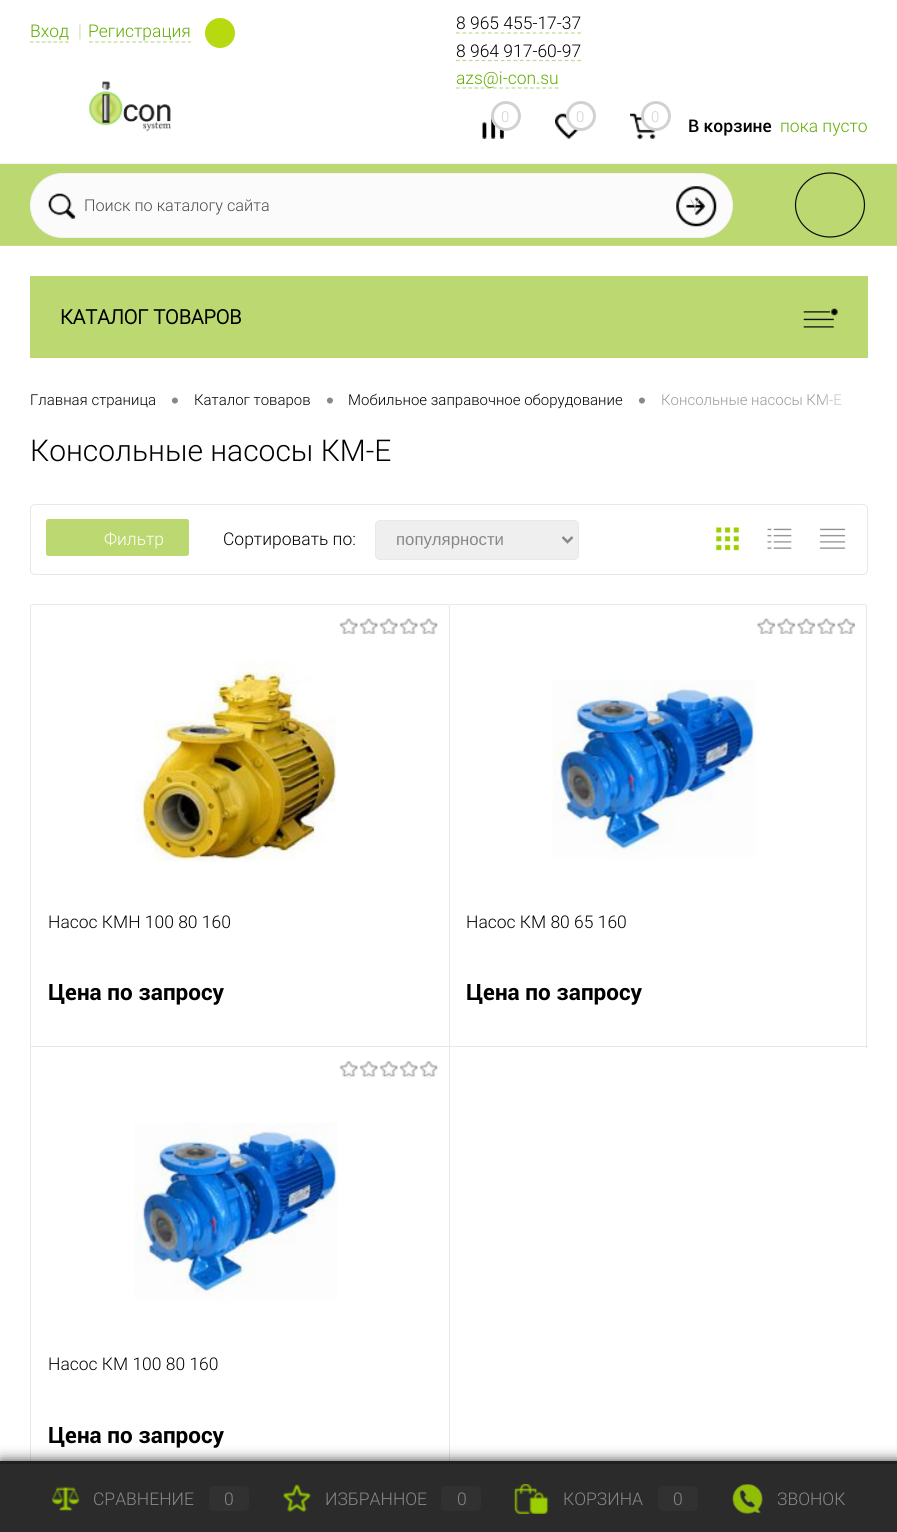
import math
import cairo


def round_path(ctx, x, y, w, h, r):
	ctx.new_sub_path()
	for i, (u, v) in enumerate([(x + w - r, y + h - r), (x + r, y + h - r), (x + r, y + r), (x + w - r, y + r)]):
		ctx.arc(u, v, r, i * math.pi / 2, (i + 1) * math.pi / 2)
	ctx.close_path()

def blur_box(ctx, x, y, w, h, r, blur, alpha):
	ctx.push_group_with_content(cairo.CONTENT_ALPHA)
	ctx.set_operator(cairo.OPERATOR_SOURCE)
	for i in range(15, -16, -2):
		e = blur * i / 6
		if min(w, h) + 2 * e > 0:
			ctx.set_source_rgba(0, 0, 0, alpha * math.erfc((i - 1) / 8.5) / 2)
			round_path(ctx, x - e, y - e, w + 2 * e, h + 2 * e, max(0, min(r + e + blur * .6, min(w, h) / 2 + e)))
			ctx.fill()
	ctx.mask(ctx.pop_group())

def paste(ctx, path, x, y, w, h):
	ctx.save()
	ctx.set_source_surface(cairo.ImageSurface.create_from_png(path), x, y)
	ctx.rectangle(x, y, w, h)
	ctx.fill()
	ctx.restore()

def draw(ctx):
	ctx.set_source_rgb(1, 1, 1)
	ctx.paint()
	ctx.set_source_rgb(0.953, 0.953, 0.953)
	ctx.rectangle(0, 163, 897, 1)
	ctx.fill()
	ctx.select_font_face('Roboto Light')
	ctx.set_font_size(17.5)
	ctx.set_source_rgb(0, 0, 0)
	ctx.move_to(456, 29)
	ctx.show_text('8 965 455-17-37')
	ctx.new_path()
	ctx.move_to(456, 33)
	ctx.line_to(581, 33)
	ctx.set_source_rgb(0.737, 0.863, 0.576)
	ctx.set_line_width(1.2)
	ctx.set_dash([3.75, 2.64])
	ctx.stroke()
	ctx.set_source_rgb(0, 0, 0)
	ctx.move_to(456, 57)
	ctx.show_text('8 964 917-60-97')
	ctx.new_path()
	ctx.move_to(456, 60.5)
	ctx.line_to(581, 60.5)
	ctx.set_source_rgb(0.737, 0.863, 0.576)
	ctx.stroke()
	ctx.new_path()
	ctx.move_to(456, 88)
	ctx.line_to(559, 88)
	ctx.set_dash([3.75, 2.42])
	ctx.stroke()
	ctx.set_source_rgb(0.38, 0.678, 0)
	ctx.move_to(456, 84)
	ctx.show_text('azs@i-con.su')
	paste(ctx, 'media/1.png', 482, 117, 22, 22)
	ctx.set_source_rgb(1, 1, 1)
	ctx.arc(506, 116, 13.5, 0, 2 * math.pi)
	ctx.fill_preserve()
	ctx.set_source_rgb(0.82, 0.82, 0.82)
	ctx.set_line_width(3)
	ctx.set_dash([])
	ctx.stroke()
	ctx.set_font_size(15)
	ctx.move_to(501, 122)
	ctx.show_text('0')
	paste(ctx, 'media/2.png', 555, 113, 24, 26)
	ctx.set_source_rgb(1, 1, 1)
	ctx.arc(581, 116, 13.5, 0, 2 * math.pi)
	ctx.fill_preserve()
	ctx.set_source_rgb(0.82, 0.82, 0.82)
	ctx.stroke()
	ctx.move_to(576, 122)
	ctx.show_text('0')
	paste(ctx, 'media/3.png', 630, 113, 26, 26)
	ctx.set_source_rgb(1, 1, 1)
	ctx.arc(656, 116, 13.5, 0, 2 * math.pi)
	ctx.fill_preserve()
	ctx.set_source_rgb(0.82, 0.82, 0.82)
	ctx.stroke()
	ctx.move_to(651, 122)
	ctx.show_text('0')
	ctx.select_font_face('Roboto Medium')
	ctx.set_font_size(17.5)
	ctx.set_source_rgb(0, 0, 0)
	ctx.move_to(688, 132)
	ctx.show_text('В корзине')
	ctx.select_font_face('Roboto Light')
	ctx.set_source_rgb(0.38, 0.678, 0)
	ctx.move_to(780, 132)
	ctx.show_text('пока пусто')
	ctx.move_to(30, 37)
	ctx.show_text('Вход')
	ctx.new_path()
	ctx.move_to(30, 42)
	ctx.line_to(69, 42)
	ctx.set_source_rgb(0.737, 0.863, 0.576)
	ctx.set_line_width(1.2)
	ctx.set_dash([3.75, 2.09])
	ctx.stroke()
	ctx.move_to(78, 37)
	ctx.show_text('|')
	ctx.set_source_rgb(0.38, 0.678, 0)
	ctx.move_to(88, 37)
	ctx.show_text('Регистрация')
	ctx.new_path()
	ctx.move_to(89, 42)
	ctx.line_to(191, 42)
	ctx.set_source_rgb(0.737, 0.863, 0.576)
	ctx.set_dash([3.75, 2.42])
	ctx.stroke()
	ctx.set_source_rgb(0.714, 0.855, 0.059)
	ctx.arc(220, 33, 15, 0, 2 * math.pi)
	ctx.fill()
	ctx.set_source_rgb(0.737, 0.847, 0.439)
	ctx.rectangle(0, 164, 897, 81)
	ctx.fill()
	ctx.set_source_rgb(0.984, 0.984, 0.984)
	round_path(ctx, 30.5, 173.5, 702, 64, 32)
	ctx.fill_preserve()
	ctx.set_source_rgb(0.953, 0.953, 0.953)
	ctx.set_line_width(1)
	ctx.set_dash([])
	ctx.stroke()
	paste(ctx, 'media/4.png', 48, 193, 28, 26)
	ctx.set_font_size(16.25)
	ctx.set_source_rgb(0.294, 0.294, 0.294)
	ctx.move_to(84, 211)
	ctx.show_text('Поиск по каталогу сайта')
	paste(ctx, 'media/5.png', 676, 186, 41, 41)
	ctx.set_source_rgb(0.706, 0.706, 0.706)
	ctx.move_to(690, 211)
	ctx.show_text('Y')
	paste(ctx, 'media/6.png', 88, 81, 83, 51)
	ctx.set_source_rgb(0.776, 0.871, 0.522)
	ctx.rectangle(0, 245, 897, 1)
	ctx.fill()
	ctx.new_path()
	ctx.move_to(830, 173)
	ctx.curve_to(849, 173, 864.5, 187.5, 864.5, 205)
	ctx.curve_to(864.5, 222.5, 849, 237, 830, 237)
	ctx.curve_to(811, 237, 795.5, 222.5, 795.5, 205)
	ctx.curve_to(795.5, 187.5, 811, 173, 830, 173)
	ctx.close_path()
	ctx.set_source_rgb(0.047, 0.047, 0.047)
	ctx.set_line_width(1.2)
	ctx.stroke()
	ctx.set_source_rgb(0.737, 0.847, 0.439)
	ctx.rectangle(30, 276, 838, 82)
	ctx.fill()
	ctx.select_font_face('Roboto', cairo.FONT_SLANT_NORMAL, cairo.FONT_WEIGHT_BOLD)
	ctx.set_font_size(20)
	ctx.set_source_rgb(0, 0, 0)
	ctx.move_to(60, 324)
	ctx.show_text('КАТАЛОГ ТОВАРОВ')
	paste(ctx, 'media/7.png', 803, 308, 35, 20)
	ctx.select_font_face('Roboto Light')
	ctx.set_font_size(15)
	ctx.move_to(30, 405)
	ctx.show_text('Главная страница')
	ctx.select_font_face('Liberation Sans')
	ctx.set_font_size(22.5)
	ctx.set_source_rgb(0.533, 0.533, 0.533)
	ctx.move_to(171, 408)
	ctx.show_text('•')
	ctx.select_font_face('Roboto Light')
	ctx.set_font_size(15)
	ctx.set_source_rgb(0, 0, 0)
	ctx.move_to(194, 405)
	ctx.show_text('Каталог товаров')
	ctx.select_font_face('Liberation Sans')
	ctx.set_font_size(22.5)
	ctx.set_source_rgb(0.533, 0.533, 0.533)
	ctx.move_to(326, 408)
	ctx.show_text('•')
	ctx.select_font_face('Roboto Light')
	ctx.set_font_size(15)
	ctx.set_source_rgb(0, 0, 0)
	ctx.move_to(348, 405)
	ctx.show_text('Мобильное заправочное оборудование')
	ctx.select_font_face('Liberation Sans')
	ctx.set_font_size(22.5)
	ctx.set_source_rgb(0.533, 0.533, 0.533)
	ctx.move_to(638, 408)
	ctx.show_text('•')
	ctx.select_font_face('Roboto Light')
	ctx.set_font_size(15)
	ctx.set_source_rgb(0.6, 0.6, 0.6)
	ctx.move_to(661, 405)
	ctx.show_text('Консольные насосы КМ-Е')
	gradient = cairo.LinearGradient(824, 401, 868, 401)
	gradient.add_color_stop_rgba(0, 1, 1, 1, 0.2)
	gradient.add_color_stop_rgba(1, 1, 1, 1, 1)
	ctx.set_source(gradient)
	ctx.rectangle(824, 394, 18, 11)
	ctx.fill()
	ctx.set_font_size(30)
	ctx.set_source_rgb(0, 0, 0)
	ctx.move_to(30, 461)
	ctx.show_text('Консольные насосы КМ-Е')
	round_path(ctx, 30.5, 504.5, 837, 70, 4.5)
	ctx.set_source_rgb(0.906, 0.91, 0.918)
	ctx.set_line_width(1)
	ctx.stroke()
	ctx.set_source_rgb(0.737, 0.847, 0.439)
	round_path(ctx, 46, 519, 143, 37, 2.5)
	ctx.fill()
	ctx.set_font_size(17.5)
	ctx.set_source_rgb(1, 1, 1)
	ctx.move_to(104, 545)
	ctx.show_text('Фильтр')
	ctx.set_source_rgb(0, 0, 0)
	ctx.move_to(223, 545)
	ctx.show_text('Сортировать по:')
	ctx.set_source_rgb(0.937, 0.937, 0.937)
	round_path(ctx, 375.5, 520.5, 203, 39, 4.5)
	ctx.fill_preserve()
	ctx.set_source_rgb(0.906, 0.91, 0.918)
	ctx.stroke()
	ctx.new_path()
	ctx.move_to(562.5, 537)
	ctx.line_to(567.5, 542)
	ctx.line_to(572.5, 537)
	ctx.set_source_rgb(0.533, 0.533, 0.533)
	ctx.set_line_width(2.5)
	ctx.stroke()
	ctx.select_font_face('Liberation Sans')
	ctx.set_font_size(16.75)
	ctx.move_to(396, 545)
	ctx.show_text('популярности')
	paste(ctx, 'media/8.png', 716, 527, 23, 24)
	paste(ctx, 'media/9.png', 767, 528, 25, 21)
	paste(ctx, 'media/10.png', 819, 528, 27, 21)
	ctx.set_source_rgb(0.906, 0.91, 0.918)
	ctx.rectangle(30, 605, 1, 856)
	ctx.rectangle(449, 605, 1, 856)
	ctx.rectangle(31, 1046, 419, 1)
	ctx.rectangle(31, 604, 418, 1)
	ctx.fill()
	paste(ctx, 'media/11.png', 339, 618, 99, 17)
	paste(ctx, 'media/12.png', 134, 661, 203, 201)
	ctx.select_font_face('Roboto Light')
	ctx.set_font_size(17.5)
	ctx.set_source_rgb(0, 0, 0)
	ctx.move_to(48, 928)
	ctx.show_text('Насос КМН 100 80 160')
	ctx.select_font_face('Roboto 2', cairo.FONT_SLANT_NORMAL, cairo.FONT_WEIGHT_BOLD)
	ctx.set_font_size(22.5)
	ctx.move_to(48, 1000)
	ctx.show_text('Цена по запросу')
	ctx.set_source_rgb(0.906, 0.91, 0.918)
	ctx.rectangle(866, 605, 1, 443)
	ctx.rectangle(450, 1046, 418, 1)
	ctx.rectangle(450, 604, 416, 1)
	ctx.fill()
	paste(ctx, 'media/13.png', 757, 618, 98, 17)
	paste(ctx, 'media/14.png', 552, 680, 204, 181)
	ctx.select_font_face('Roboto Light')
	ctx.set_font_size(17.5)
	ctx.set_source_rgb(0, 0, 0)
	ctx.move_to(466, 928)
	ctx.show_text('Насос КМ 80 65 160')
	ctx.select_font_face('Roboto 2', cairo.FONT_SLANT_NORMAL, cairo.FONT_WEIGHT_BOLD)
	ctx.set_font_size(22.5)
	ctx.move_to(466, 1000)
	ctx.show_text('Цена по запросу')
	paste(ctx, 'media/15.png', 339, 1061, 99, 17)
	paste(ctx, 'media/16.png', 134, 1123, 204, 181)
	ctx.select_font_face('Roboto Light')
	ctx.set_font_size(17.5)
	ctx.move_to(48, 1370)
	ctx.show_text('Насос КМ 100 80 160')
	ctx.select_font_face('Roboto 2', cairo.FONT_SLANT_NORMAL, cairo.FONT_WEIGHT_BOLD)
	ctx.set_font_size(22.5)
	ctx.move_to(48, 1443)
	ctx.show_text('Цена по запросу')
	ctx.set_source_rgb(0, 0, 0)
	blur_box(ctx, 1, 1463, 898, 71, 0, 7.5, 1)
	ctx.set_source_rgb(0.169, 0.169, 0.169)
	ctx.rectangle(0, 1464, 897, 68)
	ctx.fill()
	ctx.set_source_rgb(0.125, 0.125, 0.125)
	ctx.rectangle(0, 1461, 897, 3)
	ctx.fill()
	paste(ctx, 'media/17.png', 52, 1486, 28, 25)
	ctx.select_font_face('Roboto Light')
	ctx.set_font_size(17.5)
	ctx.set_source_rgb(0.533, 0.533, 0.533)
	ctx.move_to(93, 1505)
	ctx.show_text('СРАВНЕНИЕ')
	ctx.set_source_rgb(0.192, 0.192, 0.192)
	round_path(ctx, 209, 1486, 40, 25, 5)
	ctx.fill()
	ctx.set_source_rgb(0.533, 0.533, 0.533)
	ctx.move_to(224, 1505)
	ctx.show_text('0')
	paste(ctx, 'media/18.png', 283, 1484, 28, 28)
	ctx.move_to(325, 1505)
	ctx.show_text('ИЗБРАННОЕ')
	ctx.set_source_rgb(0.192, 0.192, 0.192)
	round_path(ctx, 441, 1486, 40, 25, 5)
	ctx.fill()
	ctx.set_source_rgb(0.533, 0.533, 0.533)
	ctx.move_to(457, 1505)
	ctx.show_text('0')
	paste(ctx, 'media/19.png', 514, 1484, 35, 30)
	ctx.move_to(563, 1505)
	ctx.show_text('КОРЗИНА')
	ctx.set_source_rgb(0.192, 0.192, 0.192)
	round_path(ctx, 658, 1486, 40, 25, 5)
	ctx.fill()
	ctx.set_source_rgb(0.533, 0.533, 0.533)
	ctx.move_to(673, 1505)
	ctx.show_text('0')
	paste(ctx, 'media/20.png', 732, 1484, 31, 30)
	ctx.move_to(777, 1505)
	ctx.show_text('ЗВОНОК')


surface = cairo.ImageSurface(cairo.FORMAT_RGB24, 897, 1532)
ctx = cairo.Context(surface)
options = cairo.FontOptions()
options.set_hint_metrics(cairo.HINT_METRICS_OFF)
options.set_hint_style(cairo.HINT_STYLE_NONE)
ctx.set_font_options(options)
ctx.set_miter_limit(4)
draw(ctx)
surface.write_to_png('image.png')
